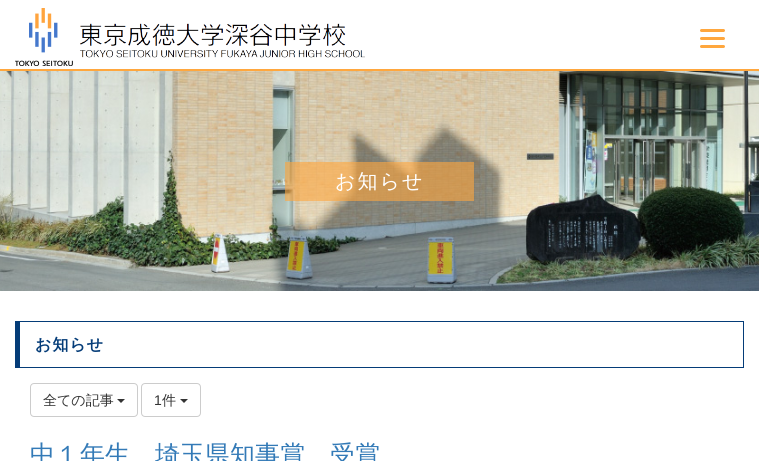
import math
import cairo


def write_spaced(ctx, x, y, s, letter, word):
	ctx.move_to(x, y)
	for ch in s:
		ctx.show_text(ch)
		ctx.rel_move_to(letter + word * (ch == ' '), 0)

def round_path(ctx, x, y, w, h, r):
	ctx.new_sub_path()
	for i, (u, v) in enumerate([(x + w - r, y + h - r), (x + r, y + h - r), (x + r, y + r), (x + w - r, y + r)]):
		ctx.arc(u, v, r, i * math.pi / 2, (i + 1) * math.pi / 2)
	ctx.close_path()

def paste(ctx, path, x, y, w, h):
	ctx.save()
	ctx.set_source_surface(cairo.ImageSurface.create_from_png(path), x, y)
	ctx.rectangle(x, y, w, h)
	ctx.fill()
	ctx.restore()

def draw(ctx):
	ctx.set_source_rgb(1, 1, 1)
	ctx.paint()
	paste(ctx, 'media/1.png', 15, 8, 350, 58)
	ctx.set_source_rgb(1, 0.655, 0.243)
	ctx.rectangle(0, 69, 759, 2)
	ctx.fill()
	round_path(ctx, 700, 37, 25, 3, 1.5)
	ctx.fill()
	round_path(ctx, 700, 29, 25, 3, 1.5)
	ctx.fill()
	round_path(ctx, 700, 45, 25, 3, 1.5)
	ctx.fill()
	paste(ctx, 'media/2.png', 0, 71, 759, 220)
	ctx.set_source_rgba(1, 0.655, 0.243, 0.6)
	ctx.rectangle(285, 162, 189, 39)
	ctx.fill()
	ctx.select_font_face('WenQuanYi Zen Hei Medium')
	ctx.set_font_size(20)
	ctx.set_source_rgb(1, 1, 1)
	write_spaced(ctx, 335, 188, 'お知らせ', 2, 0)
	ctx.set_source_rgb(0.016, 0.235, 0.471)
	ctx.rectangle(15, 321, 729, 1)
	ctx.rectangle(743, 321, 1, 47)
	ctx.rectangle(15, 367, 729, 1)
	ctx.rectangle(15, 321, 5, 47)
	ctx.fill()
	ctx.select_font_face('WenQuanYi Zen Hei', cairo.FONT_SLANT_NORMAL, cairo.FONT_WEIGHT_BOLD)
	ctx.set_font_size(16)
	write_spaced(ctx, 35, 350, 'お知らせ', 1, 0)
	round_path(ctx, 30.5, 383.5, 107, 33, 3.5)
	ctx.set_source_rgb(0.8, 0.8, 0.8)
	ctx.set_line_width(1)
	ctx.stroke()
	ctx.select_font_face('WenQuanYi Zen Hei Medium')
	ctx.set_font_size(14)
	ctx.set_source_rgb(0.2, 0.2, 0.2)
	ctx.move_to(43, 405)
	ctx.show_text('全ての記事')
	ctx.new_path()
	ctx.move_to(117, 399)
	ctx.line_to(125, 399)
	ctx.line_to(121, 403)
	ctx.close_path()
	ctx.fill()
	round_path(ctx, 141.5, 383.5, 59, 33, 3.5)
	ctx.set_source_rgb(0.8, 0.8, 0.8)
	ctx.stroke()
	ctx.select_font_face('Liberation Sans')
	ctx.set_source_rgb(0.2, 0.2, 0.2)
	ctx.move_to(154, 405)
	ctx.show_text('1')
	ctx.select_font_face('WenQuanYi Zen Hei Medium')
	ctx.move_to(162, 405)
	ctx.show_text('件')
	ctx.new_path()
	ctx.move_to(180, 399)
	ctx.line_to(188, 399)
	ctx.line_to(184, 403)
	ctx.close_path()
	ctx.fill()
	ctx.set_font_size(25)
	ctx.set_source_rgb(0.2, 0.478, 0.718)
	ctx.move_to(30, 463)
	ctx.show_text('中１年生　埼玉県知事賞　受賞')


surface = cairo.ImageSurface(cairo.FORMAT_RGB24, 759, 461)
ctx = cairo.Context(surface)
options = cairo.FontOptions()
options.set_hint_metrics(cairo.HINT_METRICS_OFF)
options.set_hint_style(cairo.HINT_STYLE_NONE)
ctx.set_font_options(options)
ctx.set_miter_limit(4)
draw(ctx)
surface.write_to_png('image.png')
